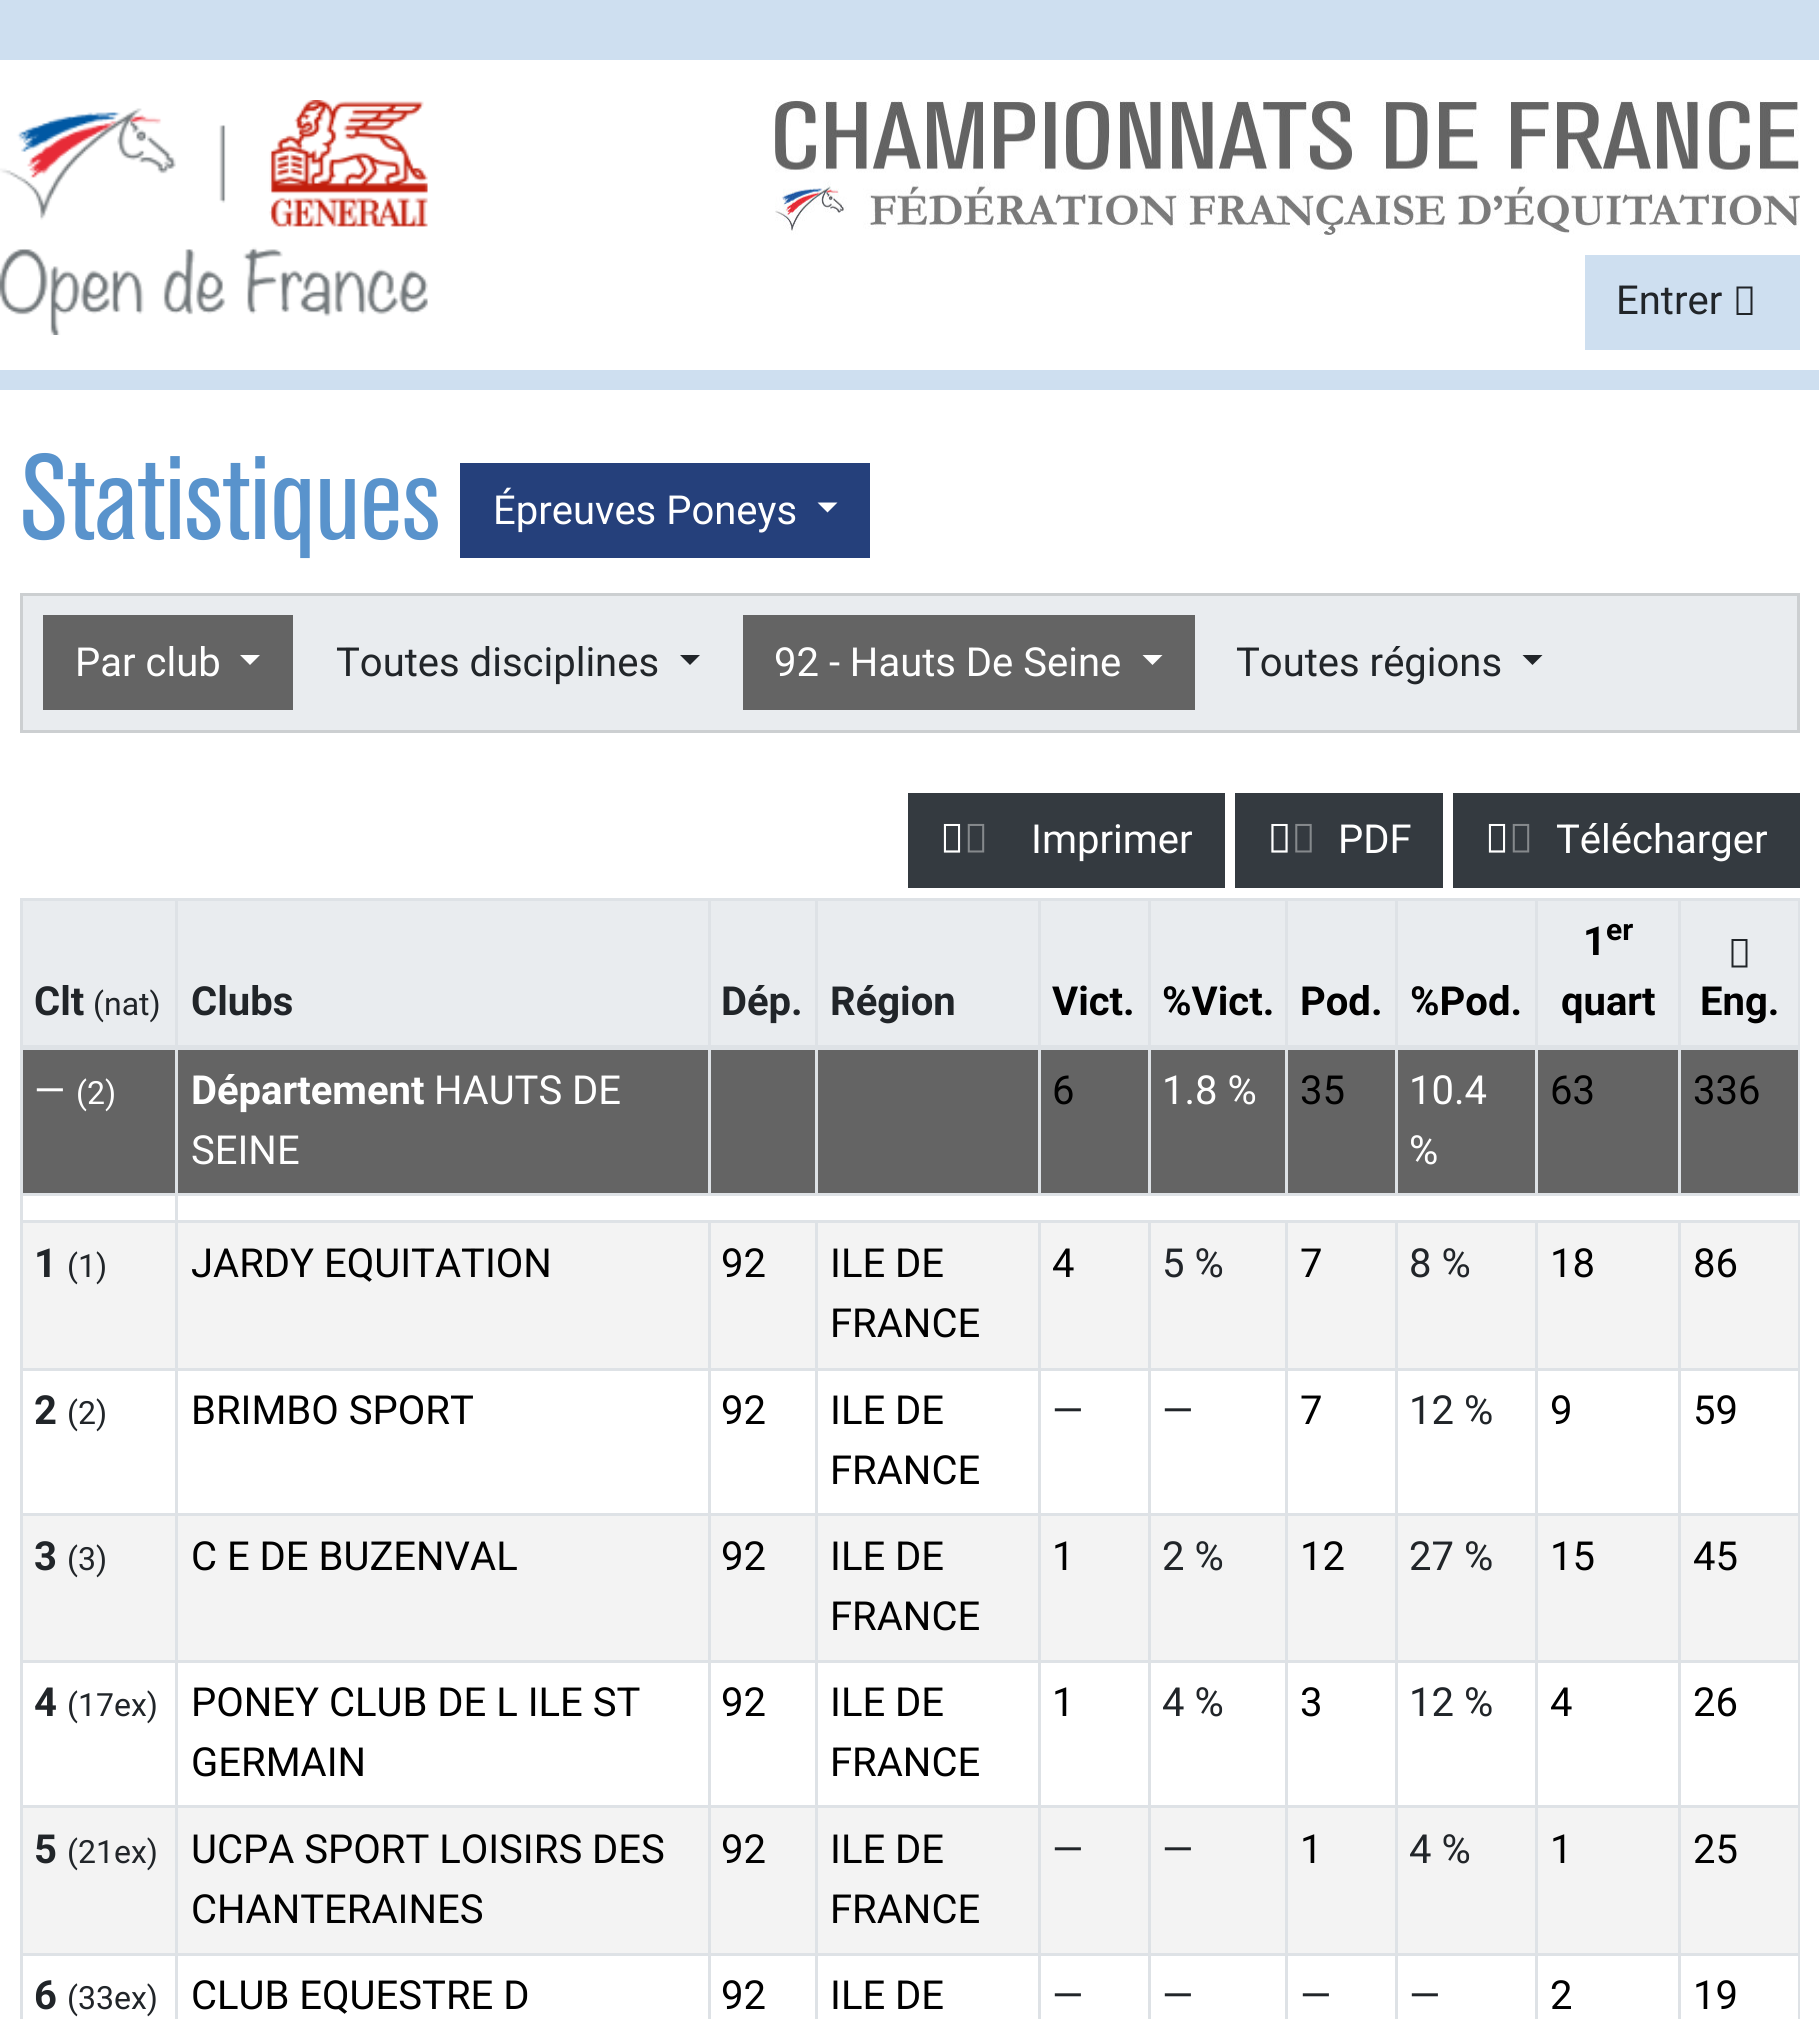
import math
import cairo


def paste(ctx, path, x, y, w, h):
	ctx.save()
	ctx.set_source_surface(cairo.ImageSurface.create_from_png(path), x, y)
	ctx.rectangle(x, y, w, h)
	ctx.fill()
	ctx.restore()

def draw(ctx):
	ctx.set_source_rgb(1, 1, 1)
	ctx.paint()
	ctx.set_source_rgb(0.808, 0.875, 0.941)
	ctx.rectangle(0, 0, 1819, 60)
	ctx.fill()
	paste(ctx, 'media/1.png', 0, 100, 428, 235)
	paste(ctx, 'media/2.png', 775, 100, 1025, 135)
	ctx.rectangle(1585, 255, 215, 95)
	ctx.fill()
	ctx.select_font_face('Roboto')
	ctx.set_font_size(40)
	ctx.set_source_rgb(0.129, 0.145, 0.161)
	ctx.move_to(1616, 314)
	ctx.show_text('Entrer')
	ctx.new_path()
	ctx.move_to(1736.5, 315)
	ctx.line_to(1736.5, 286.5)
	ctx.line_to(1752.5, 286.5)
	ctx.line_to(1752.5, 315)
	ctx.close_path()
	ctx.move_to(1738.5, 313)
	ctx.line_to(1750.5, 313)
	ctx.line_to(1750.5, 288.5)
	ctx.line_to(1738.5, 288.5)
	ctx.close_path()
	ctx.fill()
	ctx.set_source_rgb(0.808, 0.875, 0.941)
	ctx.rectangle(0, 370, 1819, 20)
	ctx.fill()
	ctx.select_font_face('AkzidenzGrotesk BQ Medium')
	ctx.set_font_size(120)
	ctx.set_source_rgb(0.349, 0.576, 0.8)
	ctx.move_to(20, 539)
	ctx.show_text('Statistiques')
	ctx.set_source_rgb(0.145, 0.251, 0.482)
	ctx.rectangle(460, 463, 410, 95)
	ctx.fill()
	ctx.select_font_face('Roboto')
	ctx.set_font_size(40)
	ctx.set_source_rgb(1, 1, 1)
	ctx.move_to(493, 524)
	ctx.show_text('Épreuves Poneys')
	ctx.new_path()
	ctx.move_to(817.5, 502.5)
	ctx.line_to(837.5, 502.5)
	ctx.line_to(827.5, 512.5)
	ctx.close_path()
	ctx.fill()
	ctx.set_source_rgb(0.914, 0.925, 0.937)
	ctx.rectangle(21.5, 594.5, 1777, 137)
	ctx.fill_preserve()
	ctx.set_source_rgb(0.8, 0.812, 0.82)
	ctx.set_line_width(3)
	ctx.stroke()
	ctx.set_source_rgb(0.392, 0.392, 0.392)
	ctx.rectangle(43, 615, 250, 95)
	ctx.fill()
	ctx.set_source_rgb(1, 1, 1)
	ctx.move_to(75, 676)
	ctx.show_text('Par club')
	ctx.new_path()
	ctx.move_to(240, 655)
	ctx.line_to(260, 655)
	ctx.line_to(250, 665)
	ctx.close_path()
	ctx.fill()
	ctx.set_source_rgb(0.129, 0.145, 0.161)
	ctx.move_to(336, 676)
	ctx.show_text('Toutes disciplines')
	ctx.new_path()
	ctx.move_to(680, 655)
	ctx.line_to(700, 655)
	ctx.line_to(690, 665)
	ctx.close_path()
	ctx.fill()
	ctx.set_source_rgb(0.392, 0.392, 0.392)
	ctx.rectangle(743, 615, 452, 95)
	ctx.fill()
	ctx.set_source_rgb(1, 1, 1)
	ctx.move_to(774, 676)
	ctx.show_text('92 - Hauts De Seine')
	ctx.new_path()
	ctx.move_to(1142.5, 655)
	ctx.line_to(1162.5, 655)
	ctx.line_to(1152.5, 665)
	ctx.close_path()
	ctx.fill()
	ctx.set_source_rgb(0.129, 0.145, 0.161)
	ctx.move_to(1236, 676)
	ctx.show_text('Toutes régions')
	ctx.new_path()
	ctx.move_to(1522.5, 655)
	ctx.line_to(1542.5, 655)
	ctx.line_to(1532.5, 665)
	ctx.close_path()
	ctx.fill()
	ctx.set_source_rgb(0.204, 0.227, 0.251)
	ctx.rectangle(908, 793, 317, 95)
	ctx.fill()
	ctx.set_source_rgb(1, 1, 1)
	ctx.new_path()
	ctx.move_to(944, 852.5)
	ctx.line_to(944, 824)
	ctx.line_to(960, 824)
	ctx.line_to(960, 852.5)
	ctx.close_path()
	ctx.move_to(946, 850.5)
	ctx.line_to(958, 850.5)
	ctx.line_to(958, 826)
	ctx.line_to(946, 826)
	ctx.close_path()
	ctx.fill()
	paste(ctx, 'media/3.png', 943, 823, 42, 30)
	ctx.move_to(1031, 853)
	ctx.show_text('Imprimer')
	ctx.set_source_rgb(0.204, 0.227, 0.251)
	ctx.rectangle(1235, 793, 208, 95)
	ctx.fill()
	ctx.set_source_rgb(1, 1, 1)
	ctx.new_path()
	ctx.move_to(1271.5, 852.5)
	ctx.line_to(1271.5, 824)
	ctx.line_to(1287.5, 824)
	ctx.line_to(1287.5, 852.5)
	ctx.close_path()
	ctx.move_to(1273.5, 850.5)
	ctx.line_to(1285.5, 850.5)
	ctx.line_to(1285.5, 826)
	ctx.line_to(1273.5, 826)
	ctx.close_path()
	ctx.fill()
	paste(ctx, 'media/4.png', 1271, 823, 41, 30)
	ctx.move_to(1338, 853)
	ctx.show_text('PDF')
	ctx.set_source_rgb(0.204, 0.227, 0.251)
	ctx.rectangle(1453, 793, 347, 95)
	ctx.fill()
	ctx.set_source_rgb(1, 1, 1)
	ctx.new_path()
	ctx.move_to(1489, 852.5)
	ctx.line_to(1489, 824)
	ctx.line_to(1505, 824)
	ctx.line_to(1505, 852.5)
	ctx.close_path()
	ctx.move_to(1491, 850.5)
	ctx.line_to(1503, 850.5)
	ctx.line_to(1503, 826)
	ctx.line_to(1491, 826)
	ctx.close_path()
	ctx.fill()
	paste(ctx, 'media/3.png', 1488, 823, 42, 30)
	ctx.move_to(1556, 853)
	ctx.show_text('Télécharger')
	ctx.set_source_rgb(0.914, 0.925, 0.937)
	ctx.rectangle(23, 901, 1775, 144)
	ctx.fill()
	ctx.set_source_rgb(0.871, 0.886, 0.902)
	ctx.rectangle(1678, 898, 122, 3)
	ctx.fill()
	ctx.set_source_rgb(0.392, 0.392, 0.392)
	ctx.rectangle(23, 1050, 1775, 143)
	ctx.fill()
	ctx.set_source_rgb(0.871, 0.886, 0.902)
	ctx.rectangle(1798, 1045, 2, 150)
	ctx.rectangle(1678, 1193, 122, 3)
	ctx.rectangle(1678, 1045, 3, 150)
	ctx.rectangle(1678, 898, 3, 150)
	ctx.rectangle(1535, 898, 145, 3)
	ctx.rectangle(1535, 1193, 145, 3)
	ctx.rectangle(1535, 1045, 3, 150)
	ctx.rectangle(1535, 898, 3, 150)
	ctx.rectangle(1395, 898, 143, 3)
	ctx.rectangle(1395, 1193, 143, 3)
	ctx.rectangle(1395, 1045, 3, 150)
	ctx.rectangle(1395, 898, 3, 150)
	ctx.rectangle(1285, 898, 113, 3)
	ctx.rectangle(1285, 1193, 113, 3)
	ctx.rectangle(1285, 1045, 3, 150)
	ctx.rectangle(1285, 898, 3, 150)
	ctx.rectangle(1148, 898, 140, 3)
	ctx.rectangle(1148, 1193, 140, 3)
	ctx.rectangle(1148, 1045, 3, 150)
	ctx.rectangle(1148, 898, 3, 150)
	ctx.rectangle(1038, 898, 112, 3)
	ctx.rectangle(1038, 1193, 112, 3)
	ctx.rectangle(1038, 1045, 3, 150)
	ctx.rectangle(1038, 898, 3, 150)
	ctx.rectangle(815, 898, 225, 3)
	ctx.rectangle(815, 1193, 225, 3)
	ctx.rectangle(815, 1045, 3, 150)
	ctx.rectangle(815, 898, 3, 150)
	ctx.rectangle(708, 898, 110, 3)
	ctx.rectangle(708, 1193, 110, 3)
	ctx.rectangle(708, 1045, 3, 150)
	ctx.rectangle(708, 898, 3, 150)
	ctx.rectangle(175, 898, 535, 3)
	ctx.rectangle(20, 1193, 158, 3)
	ctx.rectangle(1678, 1220, 122, 3)
	ctx.fill()
	ctx.set_source_rgb(0.953, 0.953, 0.953)
	ctx.rectangle(23, 1223, 1775, 145)
	ctx.fill()
	ctx.set_source_rgb(0.871, 0.886, 0.902)
	ctx.rectangle(1678, 1368, 122, 3)
	ctx.rectangle(1678, 1513, 122, 3)
	ctx.fill()
	ctx.set_source_rgb(0.953, 0.953, 0.953)
	ctx.rectangle(23, 1516, 1775, 144)
	ctx.fill()
	ctx.set_source_rgb(0.871, 0.886, 0.902)
	ctx.rectangle(1678, 1660, 122, 3)
	ctx.rectangle(1678, 1805, 122, 3)
	ctx.fill()
	ctx.set_source_rgb(0.953, 0.953, 0.953)
	ctx.rectangle(23, 1808, 1775, 145)
	ctx.fill()
	ctx.set_source_rgb(0.871, 0.886, 0.902)
	ctx.rectangle(1678, 1953, 122, 3)
	ctx.rectangle(1678, 1953, 3, 66)
	ctx.rectangle(1535, 1953, 145, 3)
	ctx.rectangle(1678, 1805, 3, 150)
	ctx.rectangle(1535, 1805, 145, 3)
	ctx.rectangle(1678, 1660, 3, 148)
	ctx.rectangle(1535, 1660, 145, 3)
	ctx.rectangle(1678, 1513, 3, 150)
	ctx.rectangle(1535, 1513, 145, 3)
	ctx.rectangle(1678, 1368, 3, 147)
	ctx.rectangle(1535, 1368, 145, 3)
	ctx.rectangle(1678, 1220, 3, 150)
	ctx.rectangle(1535, 1220, 145, 3)
	ctx.rectangle(1535, 1953, 3, 66)
	ctx.rectangle(1395, 1953, 143, 3)
	ctx.rectangle(1535, 1805, 3, 150)
	ctx.rectangle(1395, 1805, 143, 3)
	ctx.rectangle(1535, 1660, 3, 148)
	ctx.rectangle(1395, 1660, 143, 3)
	ctx.rectangle(1535, 1513, 3, 150)
	ctx.rectangle(1395, 1513, 143, 3)
	ctx.rectangle(1535, 1368, 3, 147)
	ctx.rectangle(1395, 1368, 143, 3)
	ctx.rectangle(1535, 1220, 3, 150)
	ctx.rectangle(1395, 1220, 143, 3)
	ctx.rectangle(1395, 1953, 3, 66)
	ctx.rectangle(1285, 1953, 113, 3)
	ctx.rectangle(1395, 1805, 3, 150)
	ctx.rectangle(1285, 1805, 113, 3)
	ctx.rectangle(1395, 1660, 3, 148)
	ctx.rectangle(1285, 1660, 113, 3)
	ctx.rectangle(1395, 1513, 3, 150)
	ctx.rectangle(1285, 1513, 113, 3)
	ctx.rectangle(1395, 1368, 3, 147)
	ctx.rectangle(1285, 1368, 113, 3)
	ctx.rectangle(1395, 1220, 3, 150)
	ctx.rectangle(1285, 1220, 113, 3)
	ctx.rectangle(1285, 1953, 3, 66)
	ctx.rectangle(1148, 1953, 140, 3)
	ctx.rectangle(1285, 1805, 3, 150)
	ctx.rectangle(1148, 1805, 140, 3)
	ctx.rectangle(1285, 1660, 3, 148)
	ctx.rectangle(1148, 1660, 140, 3)
	ctx.rectangle(1285, 1513, 3, 150)
	ctx.rectangle(1148, 1513, 140, 3)
	ctx.rectangle(1285, 1368, 3, 147)
	ctx.rectangle(1148, 1368, 140, 3)
	ctx.rectangle(1285, 1220, 3, 150)
	ctx.rectangle(1148, 1220, 140, 3)
	ctx.rectangle(1148, 1953, 3, 66)
	ctx.rectangle(1038, 1953, 112, 3)
	ctx.rectangle(1148, 1805, 3, 150)
	ctx.rectangle(1038, 1805, 112, 3)
	ctx.rectangle(1148, 1660, 3, 148)
	ctx.rectangle(1038, 1660, 112, 3)
	ctx.rectangle(1148, 1513, 3, 150)
	ctx.rectangle(1038, 1513, 112, 3)
	ctx.rectangle(1148, 1368, 3, 147)
	ctx.rectangle(1038, 1368, 112, 3)
	ctx.rectangle(1148, 1220, 3, 150)
	ctx.rectangle(1038, 1220, 112, 3)
	ctx.rectangle(1038, 1953, 3, 66)
	ctx.rectangle(815, 1953, 225, 3)
	ctx.rectangle(1038, 1805, 3, 150)
	ctx.rectangle(815, 1805, 225, 3)
	ctx.rectangle(1038, 1660, 3, 148)
	ctx.rectangle(815, 1660, 225, 3)
	ctx.rectangle(1038, 1513, 3, 150)
	ctx.rectangle(815, 1513, 225, 3)
	ctx.rectangle(1038, 1368, 3, 147)
	ctx.rectangle(815, 1368, 225, 3)
	ctx.rectangle(1038, 1220, 3, 150)
	ctx.rectangle(815, 1220, 225, 3)
	ctx.rectangle(815, 1953, 3, 66)
	ctx.rectangle(708, 1953, 110, 3)
	ctx.rectangle(815, 1805, 3, 150)
	ctx.rectangle(708, 1805, 110, 3)
	ctx.rectangle(815, 1660, 3, 148)
	ctx.rectangle(708, 1660, 110, 3)
	ctx.rectangle(815, 1513, 3, 150)
	ctx.rectangle(708, 1513, 110, 3)
	ctx.rectangle(815, 1368, 3, 147)
	ctx.rectangle(708, 1368, 110, 3)
	ctx.rectangle(815, 1220, 3, 150)
	ctx.rectangle(708, 1220, 110, 3)
	ctx.rectangle(708, 1953, 3, 66)
	ctx.rectangle(175, 1953, 535, 3)
	ctx.rectangle(708, 1805, 3, 150)
	ctx.rectangle(175, 1805, 535, 3)
	ctx.rectangle(708, 1660, 3, 148)
	ctx.rectangle(175, 1660, 535, 3)
	ctx.rectangle(708, 1513, 3, 150)
	ctx.rectangle(175, 1513, 535, 3)
	ctx.rectangle(708, 1368, 3, 147)
	ctx.rectangle(175, 1368, 535, 3)
	ctx.rectangle(708, 1220, 3, 150)
	ctx.rectangle(175, 1220, 535, 3)
	ctx.rectangle(175, 1953, 3, 66)
	ctx.rectangle(20, 1953, 158, 3)
	ctx.rectangle(175, 1805, 3, 150)
	ctx.rectangle(20, 1805, 158, 3)
	ctx.rectangle(175, 1660, 3, 148)
	ctx.rectangle(20, 1660, 158, 3)
	ctx.rectangle(175, 1513, 3, 150)
	ctx.rectangle(20, 1513, 158, 3)
	ctx.rectangle(175, 1368, 3, 147)
	ctx.rectangle(20, 1368, 158, 3)
	ctx.rectangle(175, 1220, 3, 150)
	ctx.rectangle(20, 1220, 158, 3)
	ctx.rectangle(175, 1193, 3, 30)
	ctx.rectangle(175, 1193, 535, 3)
	ctx.rectangle(175, 1045, 3, 150)
	ctx.rectangle(175, 898, 3, 150)
	ctx.rectangle(20, 898, 158, 3)
	ctx.rectangle(20, 1953, 3, 66)
	ctx.rectangle(20, 1805, 3, 150)
	ctx.rectangle(20, 1660, 3, 148)
	ctx.rectangle(20, 1513, 3, 150)
	ctx.rectangle(20, 1368, 3, 147)
	ctx.rectangle(20, 1220, 3, 150)
	ctx.rectangle(20, 1045, 3, 178)
	ctx.rectangle(20, 898, 3, 150)
	ctx.fill()
	ctx.select_font_face('Roboto', cairo.FONT_SLANT_NORMAL, cairo.FONT_WEIGHT_BOLD)
	ctx.set_source_rgb(0.129, 0.145, 0.161)
	ctx.move_to(34, 1015)
	ctx.show_text('Clt')
	ctx.select_font_face('Roboto')
	ctx.set_font_size(32)
	ctx.move_to(93, 1015)
	ctx.show_text('(nat)')
	ctx.select_font_face('Roboto', cairo.FONT_SLANT_NORMAL, cairo.FONT_WEIGHT_BOLD)
	ctx.set_font_size(40)
	for x, y, s in [
		(191, 1015, 'Clubs'),
		(721, 1015, 'Dép.'),
		(830, 1015, 'Région'),
	]:
		ctx.move_to(x, y)
		ctx.show_text(s)
	ctx.set_source_rgb(0, 0, 0)
	for x, y, s in [
		(1052, 1015, 'Vict.'),
		(1162, 1015, '%Vict.'),
		(1300, 1015, 'Pod.'),
		(1410, 1015, '%Pod.'),
		(1583, 955, '1'),
	]:
		ctx.move_to(x, y)
		ctx.show_text(s)
	ctx.set_font_size(30)
	ctx.move_to(1606, 940)
	ctx.show_text('er')
	ctx.set_font_size(40)
	ctx.move_to(1561, 1015)
	ctx.show_text('quart')
	ctx.set_source_rgb(0.871, 0.886, 0.902)
	ctx.rectangle(1798, 898, 2, 150)
	ctx.fill()
	ctx.rectangle(20, 1045, 1780, 5)
	ctx.fill()
	ctx.set_source_rgb(0.129, 0.145, 0.161)
	ctx.new_path()
	ctx.move_to(1731.5, 967.5)
	ctx.line_to(1731.5, 939)
	ctx.line_to(1747.5, 939)
	ctx.line_to(1747.5, 967.5)
	ctx.close_path()
	ctx.move_to(1733.5, 965.5)
	ctx.line_to(1745.5, 965.5)
	ctx.line_to(1745.5, 941)
	ctx.line_to(1733.5, 941)
	ctx.close_path()
	ctx.fill()
	ctx.set_source_rgb(0, 0, 0)
	ctx.move_to(1700, 1015)
	ctx.show_text('Eng.')
	ctx.select_font_face('Roboto')
	ctx.set_source_rgb(1, 1, 1)
	ctx.move_to(34, 1104)
	ctx.show_text('—')
	ctx.set_font_size(32)
	ctx.move_to(76, 1104)
	ctx.show_text('(2)')
	ctx.select_font_face('Roboto', cairo.FONT_SLANT_NORMAL, cairo.FONT_WEIGHT_BOLD)
	ctx.set_font_size(40)
	ctx.move_to(191, 1104)
	ctx.show_text('Département')
	ctx.select_font_face('Roboto')
	ctx.move_to(434, 1104)
	ctx.show_text('HAUTS DE')
	ctx.move_to(191, 1164)
	ctx.show_text('SEINE')
	ctx.set_source_rgb(0, 0, 0)
	ctx.move_to(1052, 1104)
	ctx.show_text('6')
	ctx.set_source_rgb(1, 1, 1)
	ctx.move_to(1162, 1104)
	ctx.show_text('1.8 %')
	ctx.set_source_rgb(0, 0, 0)
	ctx.move_to(1300, 1104)
	ctx.show_text('35')
	ctx.set_source_rgb(1, 1, 1)
	ctx.move_to(1409, 1104)
	ctx.show_text('10.4')
	ctx.move_to(1409, 1164)
	ctx.show_text('%')
	ctx.set_source_rgb(0, 0, 0)
	ctx.move_to(1550, 1104)
	ctx.show_text('63')
	ctx.move_to(1693, 1104)
	ctx.show_text('336')
	ctx.select_font_face('Roboto', cairo.FONT_SLANT_NORMAL, cairo.FONT_WEIGHT_BOLD)
	ctx.set_source_rgb(0.129, 0.145, 0.161)
	ctx.move_to(34, 1277)
	ctx.show_text('1')
	ctx.select_font_face('Roboto')
	ctx.set_font_size(32)
	ctx.move_to(67, 1277)
	ctx.show_text('(1)')
	ctx.set_font_size(40)
	ctx.set_source_rgb(0, 0, 0)
	for x, y, s in [
		(191, 1277, 'JARDY EQUITATION'),
		(721, 1277, '92'),
		(830, 1277, 'ILE DE'),
		(830, 1337, 'FRANCE'),
		(1052, 1277, '4'),
	]:
		ctx.move_to(x, y)
		ctx.show_text(s)
	ctx.set_source_rgb(0.129, 0.145, 0.161)
	ctx.move_to(1162, 1277)
	ctx.show_text('5 %')
	ctx.set_source_rgb(0, 0, 0)
	ctx.move_to(1300, 1277)
	ctx.show_text('7')
	ctx.set_source_rgb(0.129, 0.145, 0.161)
	ctx.move_to(1409, 1277)
	ctx.show_text('8 %')
	ctx.set_source_rgb(0, 0, 0)
	ctx.move_to(1550, 1277)
	ctx.show_text('18')
	ctx.set_source_rgb(0.871, 0.886, 0.902)
	ctx.rectangle(1798, 1953, 2, 66)
	ctx.rectangle(1798, 1805, 2, 150)
	ctx.rectangle(1798, 1660, 2, 148)
	ctx.rectangle(1798, 1513, 2, 150)
	ctx.rectangle(1798, 1368, 2, 147)
	ctx.rectangle(1798, 1220, 2, 150)
	ctx.fill()
	ctx.set_source_rgb(0, 0, 0)
	ctx.move_to(1693, 1277)
	ctx.show_text('86')
	ctx.select_font_face('Roboto', cairo.FONT_SLANT_NORMAL, cairo.FONT_WEIGHT_BOLD)
	ctx.set_source_rgb(0.129, 0.145, 0.161)
	ctx.move_to(34, 1424)
	ctx.show_text('2')
	ctx.select_font_face('Roboto')
	ctx.set_font_size(32)
	ctx.move_to(67, 1424)
	ctx.show_text('(2)')
	ctx.set_font_size(40)
	ctx.set_source_rgb(0, 0, 0)
	for x, y, s in [
		(191, 1424, 'BRIMBO SPORT'),
		(721, 1424, '92'),
		(830, 1424, 'ILE DE'),
		(830, 1484, 'FRANCE'),
	]:
		ctx.move_to(x, y)
		ctx.show_text(s)
	ctx.set_source_rgb(0.129, 0.145, 0.161)
	ctx.move_to(1052, 1424)
	ctx.show_text('—')
	ctx.move_to(1162, 1424)
	ctx.show_text('—')
	ctx.set_source_rgb(0, 0, 0)
	ctx.move_to(1300, 1424)
	ctx.show_text('7')
	ctx.set_source_rgb(0.129, 0.145, 0.161)
	ctx.move_to(1409, 1424)
	ctx.show_text('12 %')
	ctx.set_source_rgb(0, 0, 0)
	ctx.move_to(1550, 1424)
	ctx.show_text('9')
	ctx.move_to(1693, 1424)
	ctx.show_text('59')
	ctx.select_font_face('Roboto', cairo.FONT_SLANT_NORMAL, cairo.FONT_WEIGHT_BOLD)
	ctx.set_source_rgb(0.129, 0.145, 0.161)
	ctx.move_to(34, 1570)
	ctx.show_text('3')
	ctx.select_font_face('Roboto')
	ctx.set_font_size(32)
	ctx.move_to(67, 1570)
	ctx.show_text('(3)')
	ctx.set_font_size(40)
	ctx.set_source_rgb(0, 0, 0)
	for x, y, s in [
		(191, 1570, 'C E DE BUZENVAL'),
		(721, 1570, '92'),
		(830, 1570, 'ILE DE'),
		(830, 1630, 'FRANCE'),
		(1052, 1570, '1'),
	]:
		ctx.move_to(x, y)
		ctx.show_text(s)
	ctx.set_source_rgb(0.129, 0.145, 0.161)
	ctx.move_to(1162, 1570)
	ctx.show_text('2 %')
	ctx.set_source_rgb(0, 0, 0)
	ctx.move_to(1300, 1570)
	ctx.show_text('12')
	ctx.set_source_rgb(0.129, 0.145, 0.161)
	ctx.move_to(1409, 1570)
	ctx.show_text('27 %')
	ctx.set_source_rgb(0, 0, 0)
	ctx.move_to(1550, 1570)
	ctx.show_text('15')
	ctx.move_to(1693, 1570)
	ctx.show_text('45')
	ctx.select_font_face('Roboto', cairo.FONT_SLANT_NORMAL, cairo.FONT_WEIGHT_BOLD)
	ctx.set_source_rgb(0.129, 0.145, 0.161)
	ctx.move_to(34, 1716)
	ctx.show_text('4')
	ctx.select_font_face('Roboto')
	ctx.set_font_size(32)
	ctx.move_to(67, 1716)
	ctx.show_text('(17ex)')
	ctx.set_font_size(40)
	ctx.set_source_rgb(0, 0, 0)
	for x, y, s in [
		(191, 1716, 'PONEY CLUB DE L ILE ST'),
		(191, 1776, 'GERMAIN'),
		(721, 1716, '92'),
		(830, 1716, 'ILE DE'),
		(830, 1776, 'FRANCE'),
		(1052, 1716, '1'),
	]:
		ctx.move_to(x, y)
		ctx.show_text(s)
	ctx.set_source_rgb(0.129, 0.145, 0.161)
	ctx.move_to(1162, 1716)
	ctx.show_text('4 %')
	ctx.set_source_rgb(0, 0, 0)
	ctx.move_to(1300, 1716)
	ctx.show_text('3')
	ctx.set_source_rgb(0.129, 0.145, 0.161)
	ctx.move_to(1409, 1716)
	ctx.show_text('12 %')
	ctx.set_source_rgb(0, 0, 0)
	ctx.move_to(1550, 1716)
	ctx.show_text('4')
	ctx.move_to(1693, 1716)
	ctx.show_text('26')
	ctx.select_font_face('Roboto', cairo.FONT_SLANT_NORMAL, cairo.FONT_WEIGHT_BOLD)
	ctx.set_source_rgb(0.129, 0.145, 0.161)
	ctx.move_to(34, 1863)
	ctx.show_text('5')
	ctx.select_font_face('Roboto')
	ctx.set_font_size(32)
	ctx.move_to(67, 1863)
	ctx.show_text('(21ex)')
	ctx.set_font_size(40)
	ctx.set_source_rgb(0, 0, 0)
	for x, y, s in [
		(191, 1863, 'UCPA SPORT LOISIRS DES'),
		(191, 1923, 'CHANTERAINES'),
		(721, 1863, '92'),
		(830, 1863, 'ILE DE'),
		(830, 1923, 'FRANCE'),
	]:
		ctx.move_to(x, y)
		ctx.show_text(s)
	ctx.set_source_rgb(0.129, 0.145, 0.161)
	ctx.move_to(1052, 1863)
	ctx.show_text('—')
	ctx.move_to(1162, 1863)
	ctx.show_text('—')
	ctx.set_source_rgb(0, 0, 0)
	ctx.move_to(1300, 1863)
	ctx.show_text('1')
	ctx.set_source_rgb(0.129, 0.145, 0.161)
	ctx.move_to(1409, 1863)
	ctx.show_text('4 %')
	ctx.set_source_rgb(0, 0, 0)
	ctx.move_to(1550, 1863)
	ctx.show_text('1')
	ctx.move_to(1693, 1863)
	ctx.show_text('25')
	ctx.select_font_face('Roboto', cairo.FONT_SLANT_NORMAL, cairo.FONT_WEIGHT_BOLD)
	ctx.set_source_rgb(0.129, 0.145, 0.161)
	ctx.move_to(34, 2009)
	ctx.show_text('6')
	ctx.select_font_face('Roboto')
	ctx.set_font_size(32)
	ctx.move_to(67, 2009)
	ctx.show_text('(33ex)')
	ctx.set_font_size(40)
	ctx.set_source_rgb(0, 0, 0)
	for x, y, s in [
		(191, 2009, 'CLUB EQUESTRE D'),
		(721, 2009, '92'),
		(830, 2009, 'ILE DE'),
	]:
		ctx.move_to(x, y)
		ctx.show_text(s)
	ctx.set_source_rgb(0.129, 0.145, 0.161)
	for x, y, s in [
		(1052, 2009, '—'),
		(1162, 2009, '—'),
		(1300, 2009, '—'),
		(1409, 2009, '—'),
	]:
		ctx.move_to(x, y)
		ctx.show_text(s)
	ctx.set_source_rgb(0, 0, 0)
	ctx.move_to(1550, 2009)
	ctx.show_text('2')
	ctx.move_to(1693, 2009)
	ctx.show_text('19')


surface = cairo.ImageSurface(cairo.FORMAT_RGB24, 1819, 2019)
ctx = cairo.Context(surface)
options = cairo.FontOptions()
options.set_hint_metrics(cairo.HINT_METRICS_OFF)
options.set_hint_style(cairo.HINT_STYLE_NONE)
ctx.set_font_options(options)
ctx.set_miter_limit(4)
draw(ctx)
surface.write_to_png('image.png')
